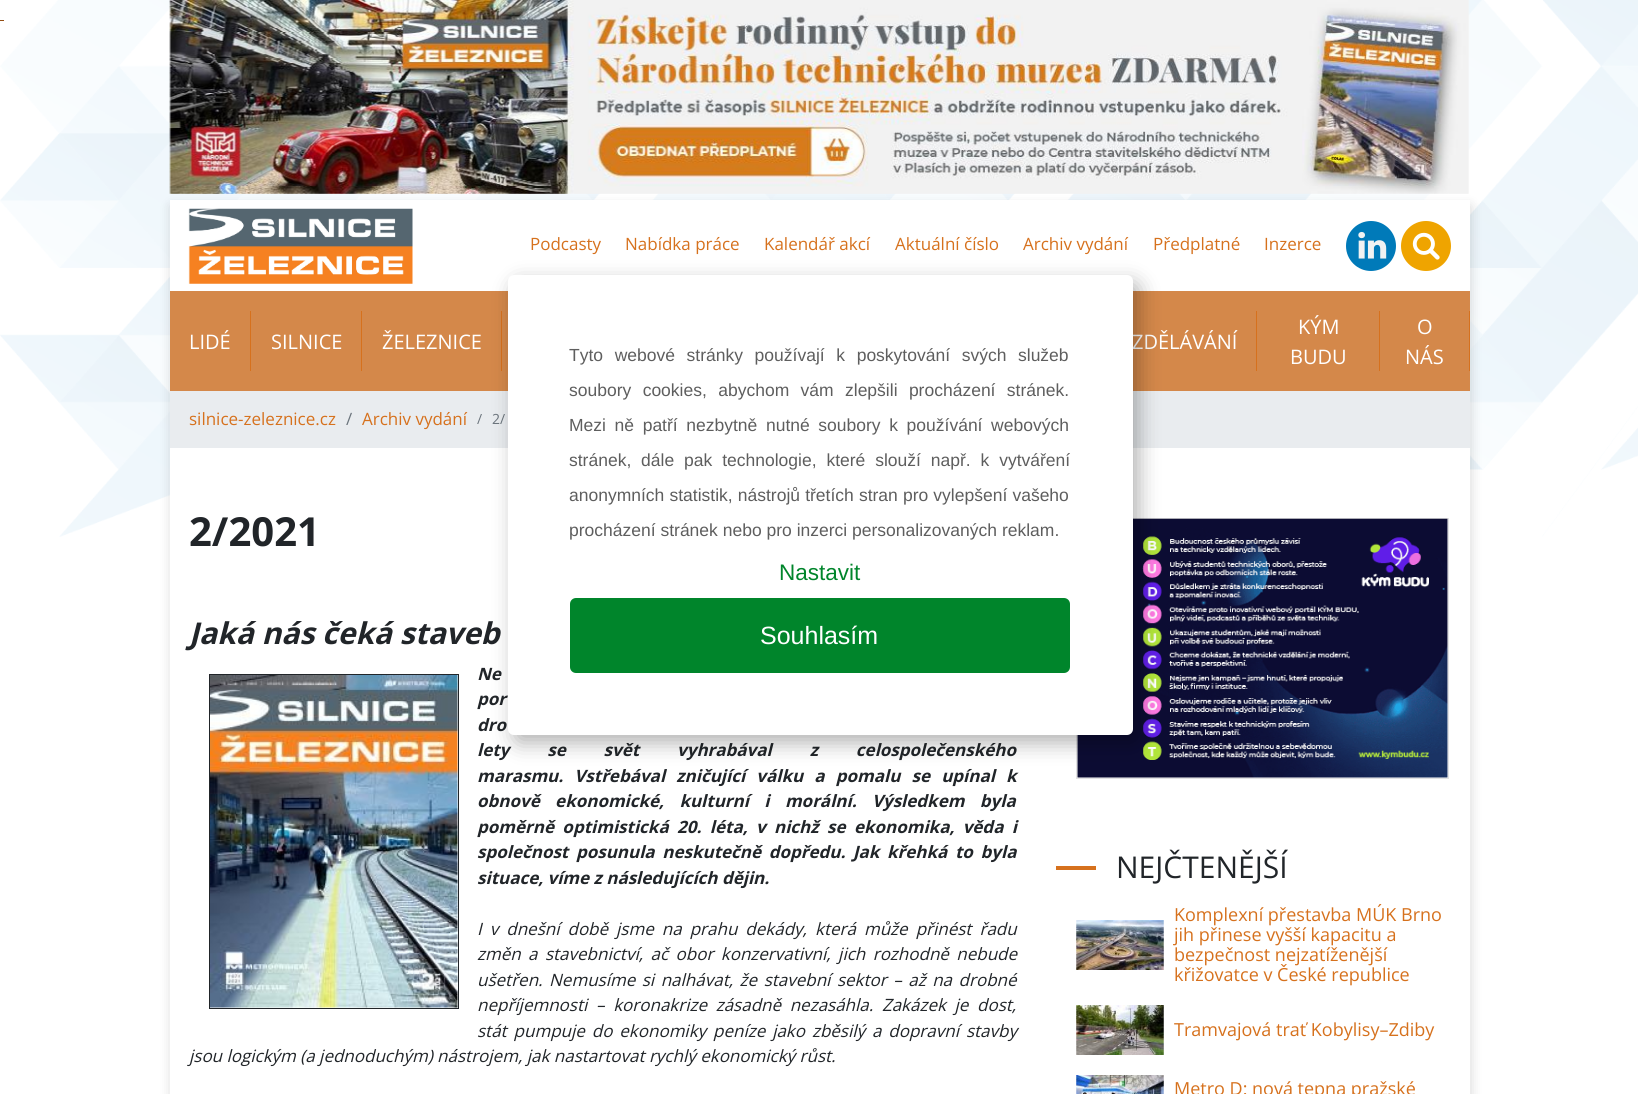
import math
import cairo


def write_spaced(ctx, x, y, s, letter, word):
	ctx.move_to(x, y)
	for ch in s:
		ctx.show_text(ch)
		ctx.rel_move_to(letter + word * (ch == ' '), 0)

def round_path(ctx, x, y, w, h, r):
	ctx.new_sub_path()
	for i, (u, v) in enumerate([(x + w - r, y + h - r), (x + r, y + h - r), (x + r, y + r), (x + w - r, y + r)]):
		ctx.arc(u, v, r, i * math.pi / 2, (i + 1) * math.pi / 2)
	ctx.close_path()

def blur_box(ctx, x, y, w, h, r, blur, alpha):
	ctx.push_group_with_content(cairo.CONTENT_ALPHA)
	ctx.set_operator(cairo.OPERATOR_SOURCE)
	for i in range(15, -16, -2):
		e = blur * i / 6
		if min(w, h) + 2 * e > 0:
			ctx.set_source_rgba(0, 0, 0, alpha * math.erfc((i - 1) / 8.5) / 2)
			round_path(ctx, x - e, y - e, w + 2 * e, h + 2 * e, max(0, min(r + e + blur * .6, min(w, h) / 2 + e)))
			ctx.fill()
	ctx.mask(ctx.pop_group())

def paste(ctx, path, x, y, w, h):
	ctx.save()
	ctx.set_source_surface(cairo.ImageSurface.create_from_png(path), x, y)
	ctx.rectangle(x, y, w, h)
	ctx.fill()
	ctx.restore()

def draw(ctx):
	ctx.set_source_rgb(1, 1, 1)
	ctx.paint()
	paste(ctx, 'media/1.png', 0, 0, 1638, 537)
	paste(ctx, 'media/2.png', 169, 0, 1300, 194)
	ctx.set_source_rgb(0.576, 0.302, 0.078)
	ctx.rectangle(0, 20, 4, 1)
	ctx.fill()
	ctx.set_source_rgb(0, 0, 0)
	blur_box(ctx, 171, 206, 1300, 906, 0, 6, 0.15)
	ctx.set_source_rgb(1, 1, 1)
	ctx.rectangle(170, 200, 1300, 894)
	ctx.fill()
	paste(ctx, 'media/3.png', 188, 208, 225, 76)
	ctx.select_font_face('Open Sans')
	ctx.set_font_size(17)
	ctx.set_source_rgb(0.839, 0.443, 0.114)
	for x, y, s in [
		(530, 250, 'Podcasty'),
		(625, 250, 'Nabídka práce'),
		(764, 250, 'Kalendář akcí'),
		(895, 250, 'Aktuální číslo'),
		(1023, 250, 'Archiv vydání'),
		(1153, 250, 'Předplatné'),
		(1264, 250, 'Inzerce'),
	]:
		ctx.move_to(x, y)
		ctx.show_text(s)
	paste(ctx, 'media/4.png', 1346, 221, 50, 50)
	paste(ctx, 'media/5.png', 1401, 221, 50, 50)
	ctx.set_source_rgb(0.831, 0.533, 0.29)
	ctx.rectangle(170, 291, 1300, 100)
	ctx.fill()
	ctx.set_font_size(20)
	ctx.set_source_rgb(1, 1, 1)
	ctx.move_to(189, 349)
	ctx.show_text('LIDÉ')
	ctx.set_source_rgb(0.839, 0.443, 0.114)
	ctx.rectangle(250, 311, 1, 60)
	ctx.fill()
	ctx.set_source_rgb(1, 1, 1)
	ctx.move_to(271, 349)
	ctx.show_text('SILNICE')
	ctx.set_source_rgb(0.839, 0.443, 0.114)
	ctx.rectangle(361, 311, 1, 60)
	ctx.fill()
	ctx.set_source_rgb(1, 1, 1)
	ctx.move_to(382, 349)
	ctx.show_text('ŽELEZNICE')
	ctx.set_source_rgb(0.839, 0.443, 0.114)
	ctx.rectangle(501, 311, 1, 60)
	ctx.fill()
	ctx.set_source_rgb(1, 1, 1)
	ctx.move_to(1132, 349)
	ctx.show_text('ZDĚLÁVÁNÍ')
	ctx.set_source_rgb(0.839, 0.443, 0.114)
	ctx.rectangle(1256, 311, 1, 60)
	ctx.fill()
	ctx.set_source_rgb(1, 1, 1)
	ctx.move_to(1298, 334)
	ctx.show_text('KÝM')
	ctx.move_to(1290, 364)
	ctx.show_text('BUDU')
	ctx.set_source_rgb(0.839, 0.443, 0.114)
	ctx.rectangle(1379, 311, 1, 60)
	ctx.fill()
	ctx.set_source_rgb(1, 1, 1)
	ctx.move_to(1417, 334)
	ctx.show_text('O')
	ctx.move_to(1405, 364)
	ctx.show_text('NÁS')
	ctx.set_source_rgb(0.839, 0.443, 0.114)
	ctx.rectangle(1469, 311, 1, 60)
	ctx.fill()
	ctx.set_source_rgb(0.914, 0.925, 0.937)
	ctx.rectangle(170, 391, 1300, 57)
	ctx.fill()
	ctx.set_font_size(17)
	ctx.set_source_rgb(0.839, 0.443, 0.114)
	ctx.move_to(189, 425)
	ctx.show_text('silnice-zeleznice.cz')
	ctx.set_source_rgb(0.424, 0.459, 0.49)
	ctx.move_to(346, 425)
	ctx.show_text('/')
	ctx.set_source_rgb(0.839, 0.443, 0.114)
	ctx.move_to(362, 425)
	ctx.show_text('Archiv vydání')
	ctx.set_font_size(14)
	ctx.set_source_rgb(0.424, 0.459, 0.49)
	ctx.move_to(477, 424)
	ctx.show_text('/')
	ctx.move_to(492, 424)
	ctx.show_text('2/')
	ctx.select_font_face('Open Sans', cairo.FONT_SLANT_NORMAL, cairo.FONT_WEIGHT_BOLD)
	ctx.set_font_size(40)
	ctx.set_source_rgb(0.129, 0.145, 0.161)
	ctx.move_to(189, 546)
	ctx.show_text('2/2021')
	ctx.select_font_face('Open Sans', cairo.FONT_SLANT_ITALIC, cairo.FONT_WEIGHT_BOLD)
	ctx.set_font_size(30)
	ctx.move_to(189, 644)
	ctx.show_text('Jaká nás čeká staveb')
	ctx.rectangle(209.5, 674.5, 249, 334)
	ctx.set_line_width(1)
	ctx.stroke()
	paste(ctx, 'media/6.png', 210, 675, 248, 333)
	ctx.set_font_size(17)
	ctx.move_to(477, 680)
	ctx.show_text('Ne')
	write_spaced(ctx, 477, 705, 'por', 0, 14)
	write_spaced(ctx, 477, 731, 'dro', 0, 2)
	write_spaced(ctx, 477, 756, 'lety se svět vyhrabával z celospolečenského', 0, 33.5)
	write_spaced(ctx, 477, 782, 'marasmu. Vstřebával zničující válku a pomalu se upínal k', 0, 6.75)
	write_spaced(ctx, 477, 807, 'obnově ekonomické, kulturní i morální. Výsledkem byla', 0, 11)
	write_spaced(ctx, 477, 833, 'poměrně optimistická 20. léta, v nichž se ekonomika, věda i', 0, 4)
	write_spaced(ctx, 477, 858, 'společnost posunula neskutečně dopředu. Jak křehká to byla', 0, 3.25)
	ctx.move_to(477, 884)
	ctx.show_text('situace, víme z následujících dějin.')
	ctx.select_font_face('Open Sans', cairo.FONT_SLANT_ITALIC)
	write_spaced(ctx, 477, 935, 'I v dnešní době jsme na prahu dekády, která může přinést řadu', 0, 3.6)
	write_spaced(ctx, 477, 960, 'změn a stavebnictví, ač obor konzervativní, jich rozhodně nebude', 0, 3)
	write_spaced(ctx, 477, 986, 'ušetřen. Nemusíme si nalhávat, že stavební sektor – až na drobné', 0, 2.1)
	write_spaced(ctx, 477, 1011, 'nepříjemnosti – koronakrize zásadně nezasáhla. Zakázek je dost,', 0, 4.25)
	write_spaced(ctx, 477, 1037, 'stát pumpuje do ekonomiky peníze jako zběsilý a dopravní stavby', 0, 2.5)
	ctx.move_to(189, 1062)
	ctx.show_text('jsou logickým (a jednoduchým) nástrojem, jak nastartovat rychlý ekonomický růst.')
	ctx.rectangle(1076.5, 518.5, 372, 260)
	ctx.set_source_rgb(0.886, 0.886, 0.886)
	ctx.stroke()
	paste(ctx, 'media/7.png', 1077, 518, 371, 260)
	ctx.set_source_rgb(0.839, 0.443, 0.114)
	ctx.rectangle(1056, 866, 40, 4)
	ctx.fill()
	ctx.select_font_face('Open Sans')
	ctx.set_font_size(30)
	ctx.set_source_rgb(0.129, 0.145, 0.161)
	ctx.move_to(1116, 878)
	ctx.show_text('NEJČTENĚJŠÍ')
	paste(ctx, 'media/8.png', 1076, 920, 88, 50)
	ctx.set_font_size(18)
	ctx.set_source_rgb(0.839, 0.443, 0.114)
	for x, y, s in [
		(1174, 921, 'Komplexní přestavba MÚK Brno'),
		(1174, 941, 'jih přinese vyšší kapacitu a'),
		(1174, 961, 'bezpečnost nejzatíženější'),
		(1174, 981, 'křižovatce v České republice'),
	]:
		ctx.move_to(x, y)
		ctx.show_text(s)
	paste(ctx, 'media/9.png', 1076, 1005, 88, 50)
	ctx.move_to(1174, 1036)
	ctx.show_text('Tramvajová trať Kobylisy–Zdiby')
	paste(ctx, 'media/10.png', 1076, 1075, 88, 19)
	ctx.move_to(1174, 1095)
	ctx.show_text('Metro D: nová tepna pražské')
	ctx.set_source_rgb(0, 0, 0)
	blur_box(ctx, 514, 283, 625, 460, 6, 10.5, 0.3)
	ctx.set_source_rgb(1, 1, 1)
	round_path(ctx, 508, 275, 625, 460, 6)
	ctx.fill()
	ctx.select_font_face('Liberation Sans')
	ctx.set_font_size(17.5)
	ctx.set_source_rgb(0.369, 0.369, 0.369)
	write_spaced(ctx, 569, 361, 'Tyto webové stránky používají k poskytování svých služeb', 0, 6.75)
	write_spaced(ctx, 569, 396, 'soubory cookies, abychom vám zlepšili procházení stránek.', 0, 6.5)
	write_spaced(ctx, 569, 431, 'Mezi ně patří nezbytně nutné soubory k používání webových', 0, 3.75)
	write_spaced(ctx, 569, 466, 'stránek, dále pak technologie, které slouží např. k vytváření', 0, 5)
	write_spaced(ctx, 569, 501, 'anonymních statistik, nástrojů třetích stran pro vylepšení vašeho', 0, 0.25)
	ctx.move_to(569, 536)
	ctx.show_text('procházení stránek nebo pro inzerci personalizovaných reklam.')
	ctx.set_font_size(22.5)
	ctx.set_source_rgb(0, 0.522, 0.169)
	ctx.move_to(779, 580)
	ctx.show_text('Nastavit')
	round_path(ctx, 570, 598, 500, 75, 6)
	ctx.fill()
	ctx.set_font_size(25)
	ctx.set_source_rgb(1, 1, 1)
	ctx.move_to(760, 644)
	ctx.show_text('Souhlasím')


surface = cairo.ImageSurface(cairo.FORMAT_RGB24, 1638, 1094)
ctx = cairo.Context(surface)
options = cairo.FontOptions()
options.set_hint_metrics(cairo.HINT_METRICS_OFF)
options.set_hint_style(cairo.HINT_STYLE_NONE)
ctx.set_font_options(options)
ctx.set_miter_limit(4)
draw(ctx)
surface.write_to_png('image.png')
